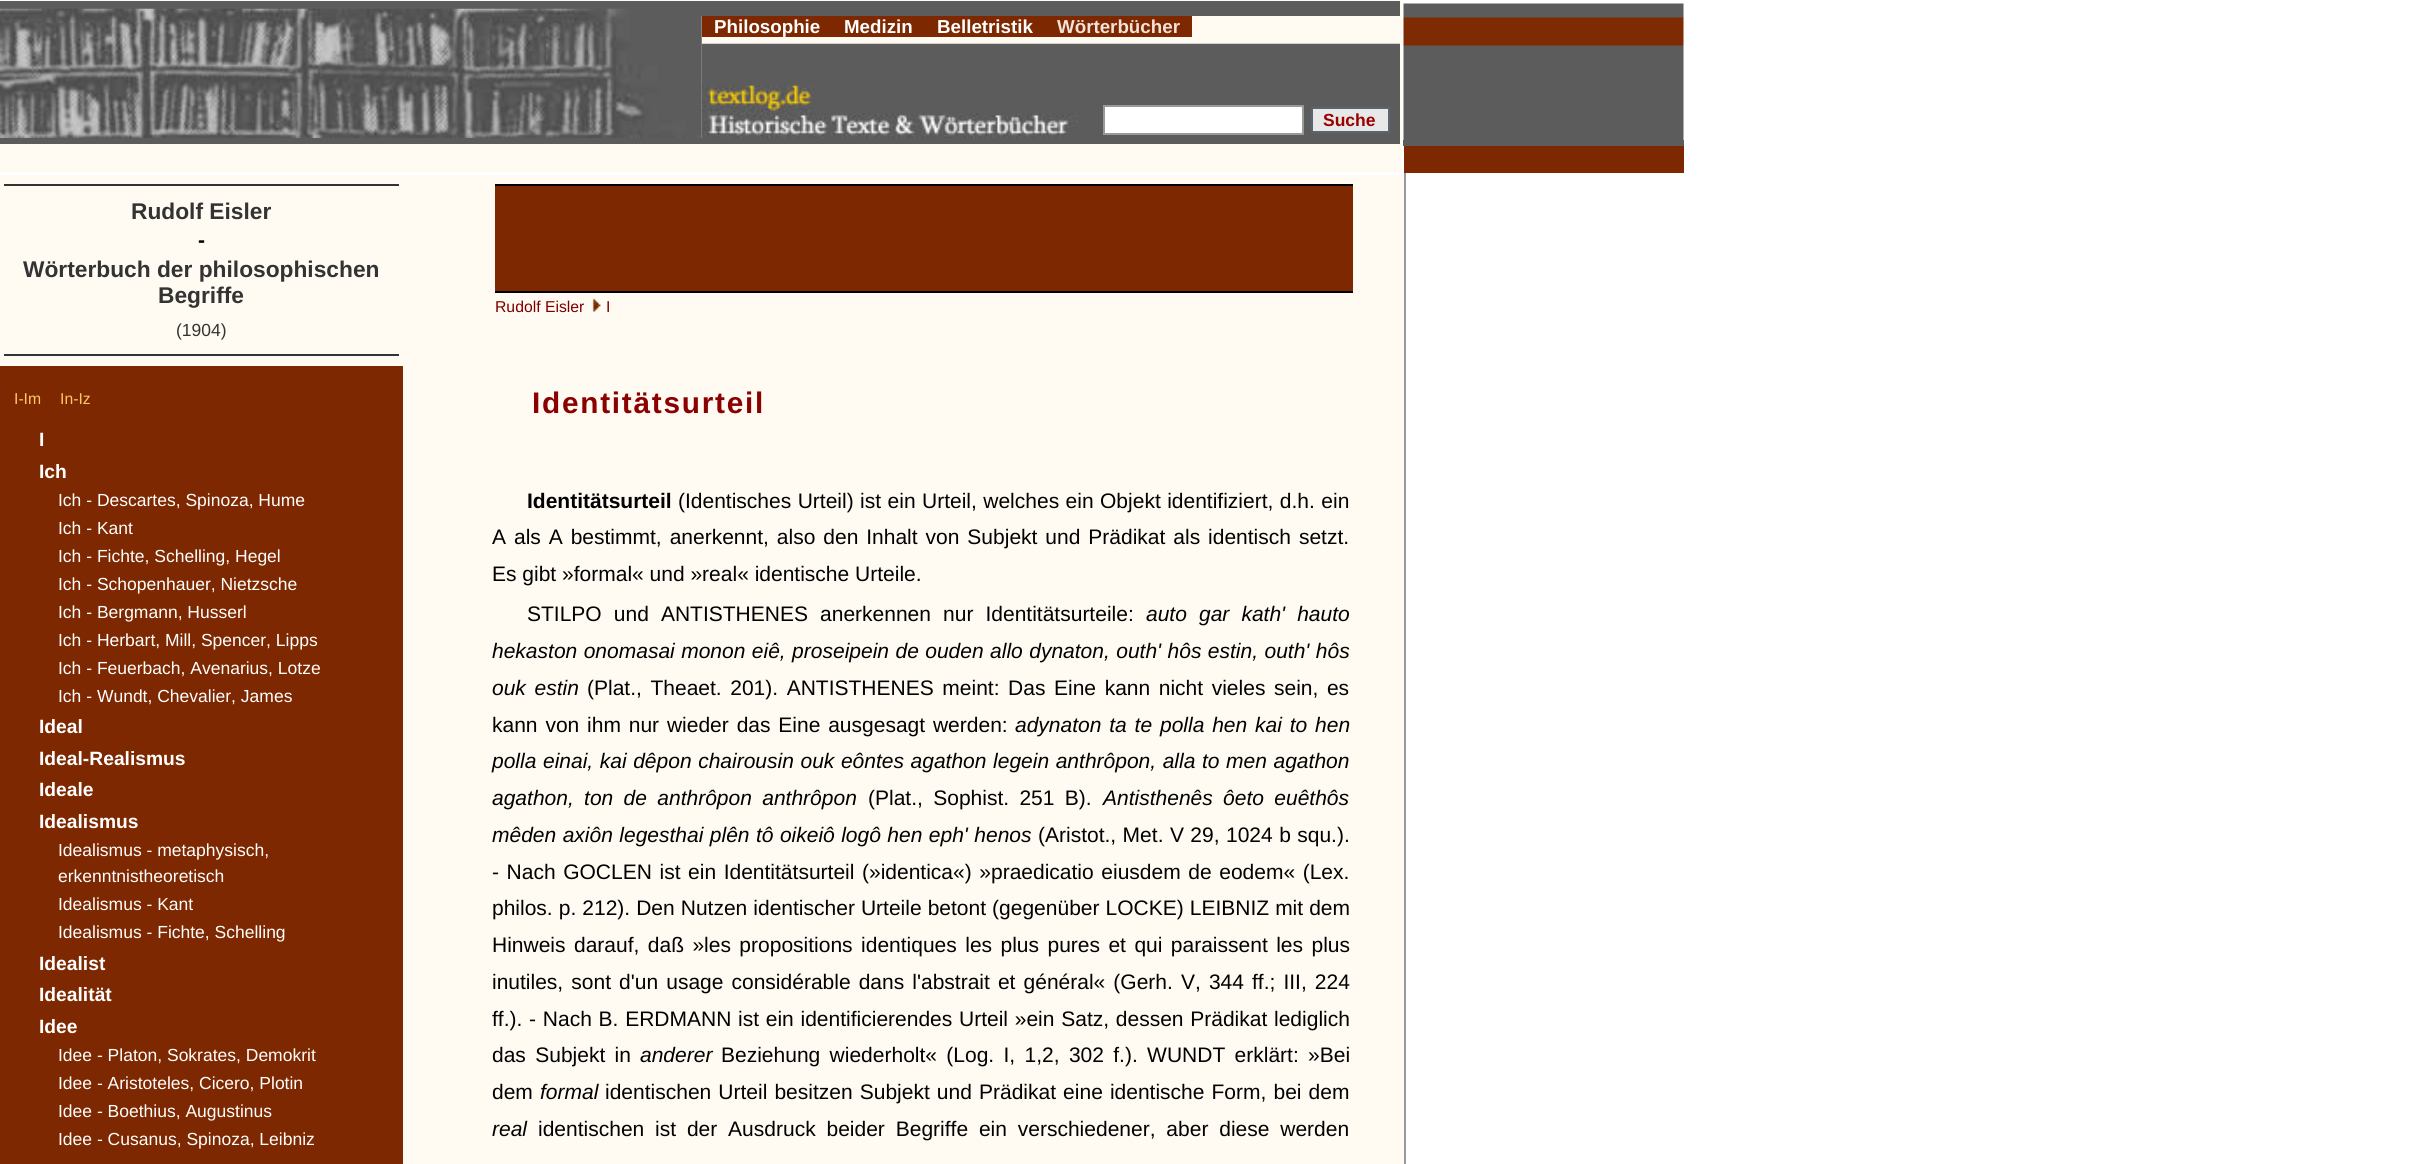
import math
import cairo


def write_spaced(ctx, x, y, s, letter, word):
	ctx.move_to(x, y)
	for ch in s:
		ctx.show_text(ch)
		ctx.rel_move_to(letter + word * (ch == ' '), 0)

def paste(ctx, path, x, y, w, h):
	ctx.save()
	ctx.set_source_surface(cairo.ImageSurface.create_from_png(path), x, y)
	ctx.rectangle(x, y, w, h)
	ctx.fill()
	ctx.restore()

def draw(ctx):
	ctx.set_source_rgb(1, 1, 1)
	ctx.paint()
	ctx.set_source_rgb(1, 0.984, 0.949)
	ctx.rectangle(0, 0, 1402, 172)
	ctx.fill()
	ctx.set_source_rgb(0.361, 0.361, 0.361)
	ctx.rectangle(0, 1, 1400, 8)
	ctx.fill()
	paste(ctx, 'media/1.png', 0, 8, 702, 130)
	ctx.rectangle(701, 9, 699, 7)
	ctx.fill()
	ctx.set_source_rgb(0.49, 0.157, 0)
	ctx.rectangle(702, 16, 490, 21)
	ctx.fill()
	ctx.select_font_face('Liberation Sans', cairo.FONT_SLANT_NORMAL, cairo.FONT_WEIGHT_BOLD)
	ctx.set_font_size(18.75)
	ctx.set_source_rgb(1, 1, 1)
	for x, y, s in [
		(714, 33, 'Philosophie'),
		(844, 33, 'Medizin'),
		(937, 33, 'Belletristik'),
	]:
		ctx.move_to(x, y)
		ctx.show_text(s)
	ctx.set_source_rgb(0.949, 0.886, 0.851)
	ctx.move_to(1057, 33)
	ctx.show_text('Wörterbücher')
	paste(ctx, 'media/2.png', 701, 43, 699, 95)
	ctx.set_source_rgb(0.361, 0.361, 0.361)
	ctx.rectangle(0, 138, 1400, 6)
	ctx.fill()
	paste(ctx, 'media/3.png', 1403, 3, 281, 137)
	ctx.rectangle(1403, 140, 281, 6)
	ctx.fill()
	ctx.set_source_rgb(0.49, 0.157, 0)
	ctx.rectangle(1404, 146, 280, 27)
	ctx.fill()
	ctx.set_source_rgb(0.6, 0.6, 0.6)
	ctx.rectangle(1404, 173, 2, 991)
	ctx.fill()
	ctx.set_source_rgb(1, 1, 1)
	ctx.rectangle(1104, 106, 199, 28)
	ctx.fill_preserve()
	ctx.set_source_rgb(0.6, 0.6, 0.6)
	ctx.stroke()
	ctx.set_source_rgb(0.91, 0.91, 0.91)
	ctx.rectangle(1312, 108, 77, 24)
	ctx.fill_preserve()
	ctx.set_source_rgb(0.341, 0.4, 0.459)
	ctx.stroke()
	ctx.set_font_size(17.5)
	ctx.set_source_rgb(0.6, 0, 0)
	ctx.move_to(1323, 126)
	ctx.show_text('Suche')
	ctx.set_source_rgb(1, 0.984, 0.949)
	ctx.rectangle(0, 175, 1404, 989)
	ctx.fill()
	ctx.set_source_rgb(0.2, 0.2, 0.2)
	ctx.rectangle(4, 184, 395, 2)
	ctx.fill()
	ctx.set_font_size(22.75)
	ctx.move_to(131, 219)
	ctx.show_text('Rudolf Eisler')
	ctx.set_font_size(21)
	ctx.set_source_rgb(0, 0, 0)
	ctx.move_to(198, 247)
	ctx.show_text('-')
	ctx.set_font_size(22.75)
	ctx.set_source_rgb(0.2, 0.2, 0.2)
	ctx.move_to(23, 277)
	ctx.show_text('Wörterbuch der philosophischen')
	ctx.move_to(158, 303)
	ctx.show_text('Begriffe')
	ctx.select_font_face('Liberation Sans')
	ctx.set_font_size(17.5)
	ctx.move_to(176, 336)
	ctx.show_text('(1904)')
	ctx.rectangle(4, 354, 395, 2)
	ctx.fill()
	ctx.set_source_rgb(0.49, 0.157, 0)
	ctx.rectangle(0, 366, 403, 798)
	ctx.fill()
	ctx.set_font_size(15.75)
	ctx.set_source_rgb(1, 0.784, 0.384)
	ctx.move_to(14, 404)
	ctx.show_text('I-Im')
	ctx.move_to(60, 404)
	ctx.show_text('In-Iz')
	ctx.select_font_face('Liberation Sans', cairo.FONT_SLANT_NORMAL, cairo.FONT_WEIGHT_BOLD)
	ctx.set_font_size(19.25)
	ctx.set_source_rgb(1, 1, 1)
	ctx.move_to(39, 446)
	ctx.show_text('I')
	ctx.move_to(39, 478)
	ctx.show_text('Ich')
	ctx.select_font_face('Liberation Sans')
	ctx.set_font_size(17.5)
	for x, y, s in [
		(58, 506, 'Ich - Descartes, Spinoza, Hume'),
		(58, 534, 'Ich - Kant'),
		(58, 562, 'Ich - Fichte, Schelling, Hegel'),
		(58, 590, 'Ich - Schopenhauer, Nietzsche'),
		(58, 618, 'Ich - Bergmann, Husserl'),
		(58, 646, 'Ich - Herbart, Mill, Spencer, Lipps'),
		(58, 674, 'Ich - Feuerbach, Avenarius, Lotze'),
		(58, 702, 'Ich - Wundt, Chevalier, James'),
	]:
		ctx.move_to(x, y)
		ctx.show_text(s)
	ctx.select_font_face('Liberation Sans', cairo.FONT_SLANT_NORMAL, cairo.FONT_WEIGHT_BOLD)
	ctx.set_font_size(19.25)
	for x, y, s in [
		(39, 733, 'Ideal'),
		(39, 765, 'Ideal-Realismus'),
		(39, 796, 'Ideale'),
		(39, 828, 'Idealismus'),
	]:
		ctx.move_to(x, y)
		ctx.show_text(s)
	ctx.select_font_face('Liberation Sans')
	ctx.set_font_size(17.5)
	for x, y, s in [
		(58, 856, 'Idealismus - metaphysisch,'),
		(58, 882, 'erkenntnistheoretisch'),
		(58, 910, 'Idealismus - Kant'),
		(58, 938, 'Idealismus - Fichte, Schelling'),
	]:
		ctx.move_to(x, y)
		ctx.show_text(s)
	ctx.select_font_face('Liberation Sans', cairo.FONT_SLANT_NORMAL, cairo.FONT_WEIGHT_BOLD)
	ctx.set_font_size(19.25)
	for x, y, s in [
		(39, 970, 'Idealist'),
		(39, 1001, 'Idealität'),
		(39, 1033, 'Idee'),
	]:
		ctx.move_to(x, y)
		ctx.show_text(s)
	ctx.select_font_face('Liberation Sans')
	ctx.set_font_size(17.5)
	for x, y, s in [
		(58, 1061, 'Idee - Platon, Sokrates, Demokrit'),
		(58, 1089, 'Idee - Aristoteles, Cicero, Plotin'),
		(58, 1117, 'Idee - Boethius, Augustinus'),
		(58, 1145, 'Idee - Cusanus, Spinoza, Leibniz'),
	]:
		ctx.move_to(x, y)
		ctx.show_text(s)
	ctx.set_source_rgb(0.49, 0.157, 0)
	ctx.rectangle(495, 186, 858, 105)
	ctx.fill()
	ctx.set_source_rgb(0, 0, 0)
	ctx.rectangle(495, 184, 858, 2)
	ctx.rectangle(495, 291, 858, 2)
	ctx.fill()
	ctx.set_font_size(15.75)
	ctx.set_source_rgb(0.49, 0, 0)
	ctx.move_to(495, 312)
	ctx.show_text('Rudolf Eisler')
	paste(ctx, 'media/4.png', 592, 298, 9, 14)
	ctx.move_to(606, 312)
	ctx.show_text('I')
	ctx.select_font_face('Liberation Sans', cairo.FONT_SLANT_NORMAL, cairo.FONT_WEIGHT_BOLD)
	ctx.set_font_size(29.75)
	ctx.set_source_rgb(0.545, 0, 0)
	write_spaced(ctx, 532, 413, 'Identitätsurteil', 1.75, 0)
	ctx.set_font_size(21)
	ctx.set_source_rgb(0, 0, 0)
	ctx.move_to(527, 508)
	ctx.show_text('Identitätsurteil')
	ctx.select_font_face('Liberation Sans')
	write_spaced(ctx, 678, 508, '(Identisches Urteil) ist ein Urteil, welches ein Objekt identifiziert, d.h. ein', 0, 0.6)
	write_spaced(ctx, 492, 544, 'A als A bestimmt, anerkennt, also den Inhalt von Subjekt und Prädikat als identisch setzt.', 0, 2.1)
	ctx.move_to(492, 581)
	ctx.show_text('Es gibt »formal« und »real« identische Urteile.')
	write_spaced(ctx, 527, 621, 'STILPO und ANTISTHENES anerkennen nur Identitätsurteile:', 0, 6.25)
	ctx.select_font_face('Liberation Sans', cairo.FONT_SLANT_ITALIC)
	write_spaced(ctx, 1146, 621, 'auto gar kath\' hauto', 0, 6.25)
	write_spaced(ctx, 492, 658, 'hekaston onomasai monon eiê, proseipein de ouden allo dynaton, outh\' hôs estin, outh\' hôs', 0, 0.6)
	write_spaced(ctx, 492, 695, 'ouk estin', 0, 2.75)
	ctx.select_font_face('Liberation Sans')
	write_spaced(ctx, 587, 695, '(Plat., Theaet. 201). ANTISTHENES meint: Das Eine kann nicht vieles sein, es', 0, 2.75)
	write_spaced(ctx, 492, 732, 'kann von ihm nur wieder das Eine ausgesagt werden:', 0, 2)
	ctx.select_font_face('Liberation Sans', cairo.FONT_SLANT_ITALIC)
	write_spaced(ctx, 1015, 732, 'adynaton ta te polla hen kai to hen', 0, 2)
	write_spaced(ctx, 492, 768, 'polla einai, kai dêpon chairousin ouk eôntes agathon legein anthrôpon, alla to men agathon', 0, 0.75)
	write_spaced(ctx, 492, 805, 'agathon, ton de anthrôpon anthrôpon', 0, 4.5)
	ctx.select_font_face('Liberation Sans')
	write_spaced(ctx, 868, 805, '(Plat., Sophist. 251 B).', 0, 4.5)
	ctx.select_font_face('Liberation Sans', cairo.FONT_SLANT_ITALIC)
	write_spaced(ctx, 1103, 805, 'Antisthenês ôeto euêthôs', 0, 4.5)
	write_spaced(ctx, 492, 842, 'mêden axiôn legesthai plên tô oikeiô logô hen eph\' henos', 0, 0.6)
	ctx.select_font_face('Liberation Sans')
	write_spaced(ctx, 1038, 842, '(Aristot., Met. V 29, 1024 b squ.).', 0, 0.6)
	write_spaced(ctx, 492, 879, '- Nach GOCLEN ist ein Identitätsurteil (»identica«) »praedicatio eiusdem de eodem« (Lex.', 0, 1.75)
	write_spaced(ctx, 492, 915, 'philos. p. 212). Den Nutzen identischer Urteile betont (gegenüber LOCKE) LEIBNIZ mit dem', 0, 0.2)
	write_spaced(ctx, 492, 952, 'Hinweis darauf, daß »les propositions identiques les plus pures et qui paraissent les plus', 0, 2.6)
	write_spaced(ctx, 492, 989, 'inutiles, sont d\'un usage considérable dans l\'abstrait et général« (Gerh. V, 344 ff.; III, 224', 0, 2.25)
	write_spaced(ctx, 492, 1026, 'ff.). - Nach B. ERDMANN ist ein identificierendes Urteil »ein Satz, dessen Prädikat lediglich', 0, 0.9)
	write_spaced(ctx, 492, 1062, 'das Subjekt in', 0, 3.5)
	ctx.select_font_face('Liberation Sans', cairo.FONT_SLANT_ITALIC)
	ctx.move_to(640, 1062)
	ctx.show_text('anderer')
	ctx.select_font_face('Liberation Sans')
	write_spaced(ctx, 721, 1062, 'Beziehung wiederholt« (Log. I, 1,2, 302 f.). WUNDT erklärt: »Bei', 0, 3.5)
	ctx.move_to(492, 1099)
	ctx.show_text('dem')
	ctx.select_font_face('Liberation Sans', cairo.FONT_SLANT_ITALIC)
	ctx.move_to(540, 1099)
	ctx.show_text('formal')
	ctx.select_font_face('Liberation Sans')
	write_spaced(ctx, 605, 1099, 'identischen Urteil besitzen Subjekt und Prädikat eine identische Form, bei dem', 0, 1.25)
	ctx.select_font_face('Liberation Sans', cairo.FONT_SLANT_ITALIC)
	ctx.move_to(492, 1136)
	ctx.show_text('real')
	ctx.select_font_face('Liberation Sans')
	write_spaced(ctx, 538, 1136, 'identischen ist der Ausdruck beider Begriffe ein verschiedener, aber diese werden', 0, 5)


surface = cairo.ImageSurface(cairo.FORMAT_RGB24, 2422, 1164)
ctx = cairo.Context(surface)
options = cairo.FontOptions()
options.set_hint_metrics(cairo.HINT_METRICS_OFF)
options.set_hint_style(cairo.HINT_STYLE_NONE)
ctx.set_font_options(options)
ctx.set_miter_limit(4)
draw(ctx)
surface.write_to_png('image.png')
